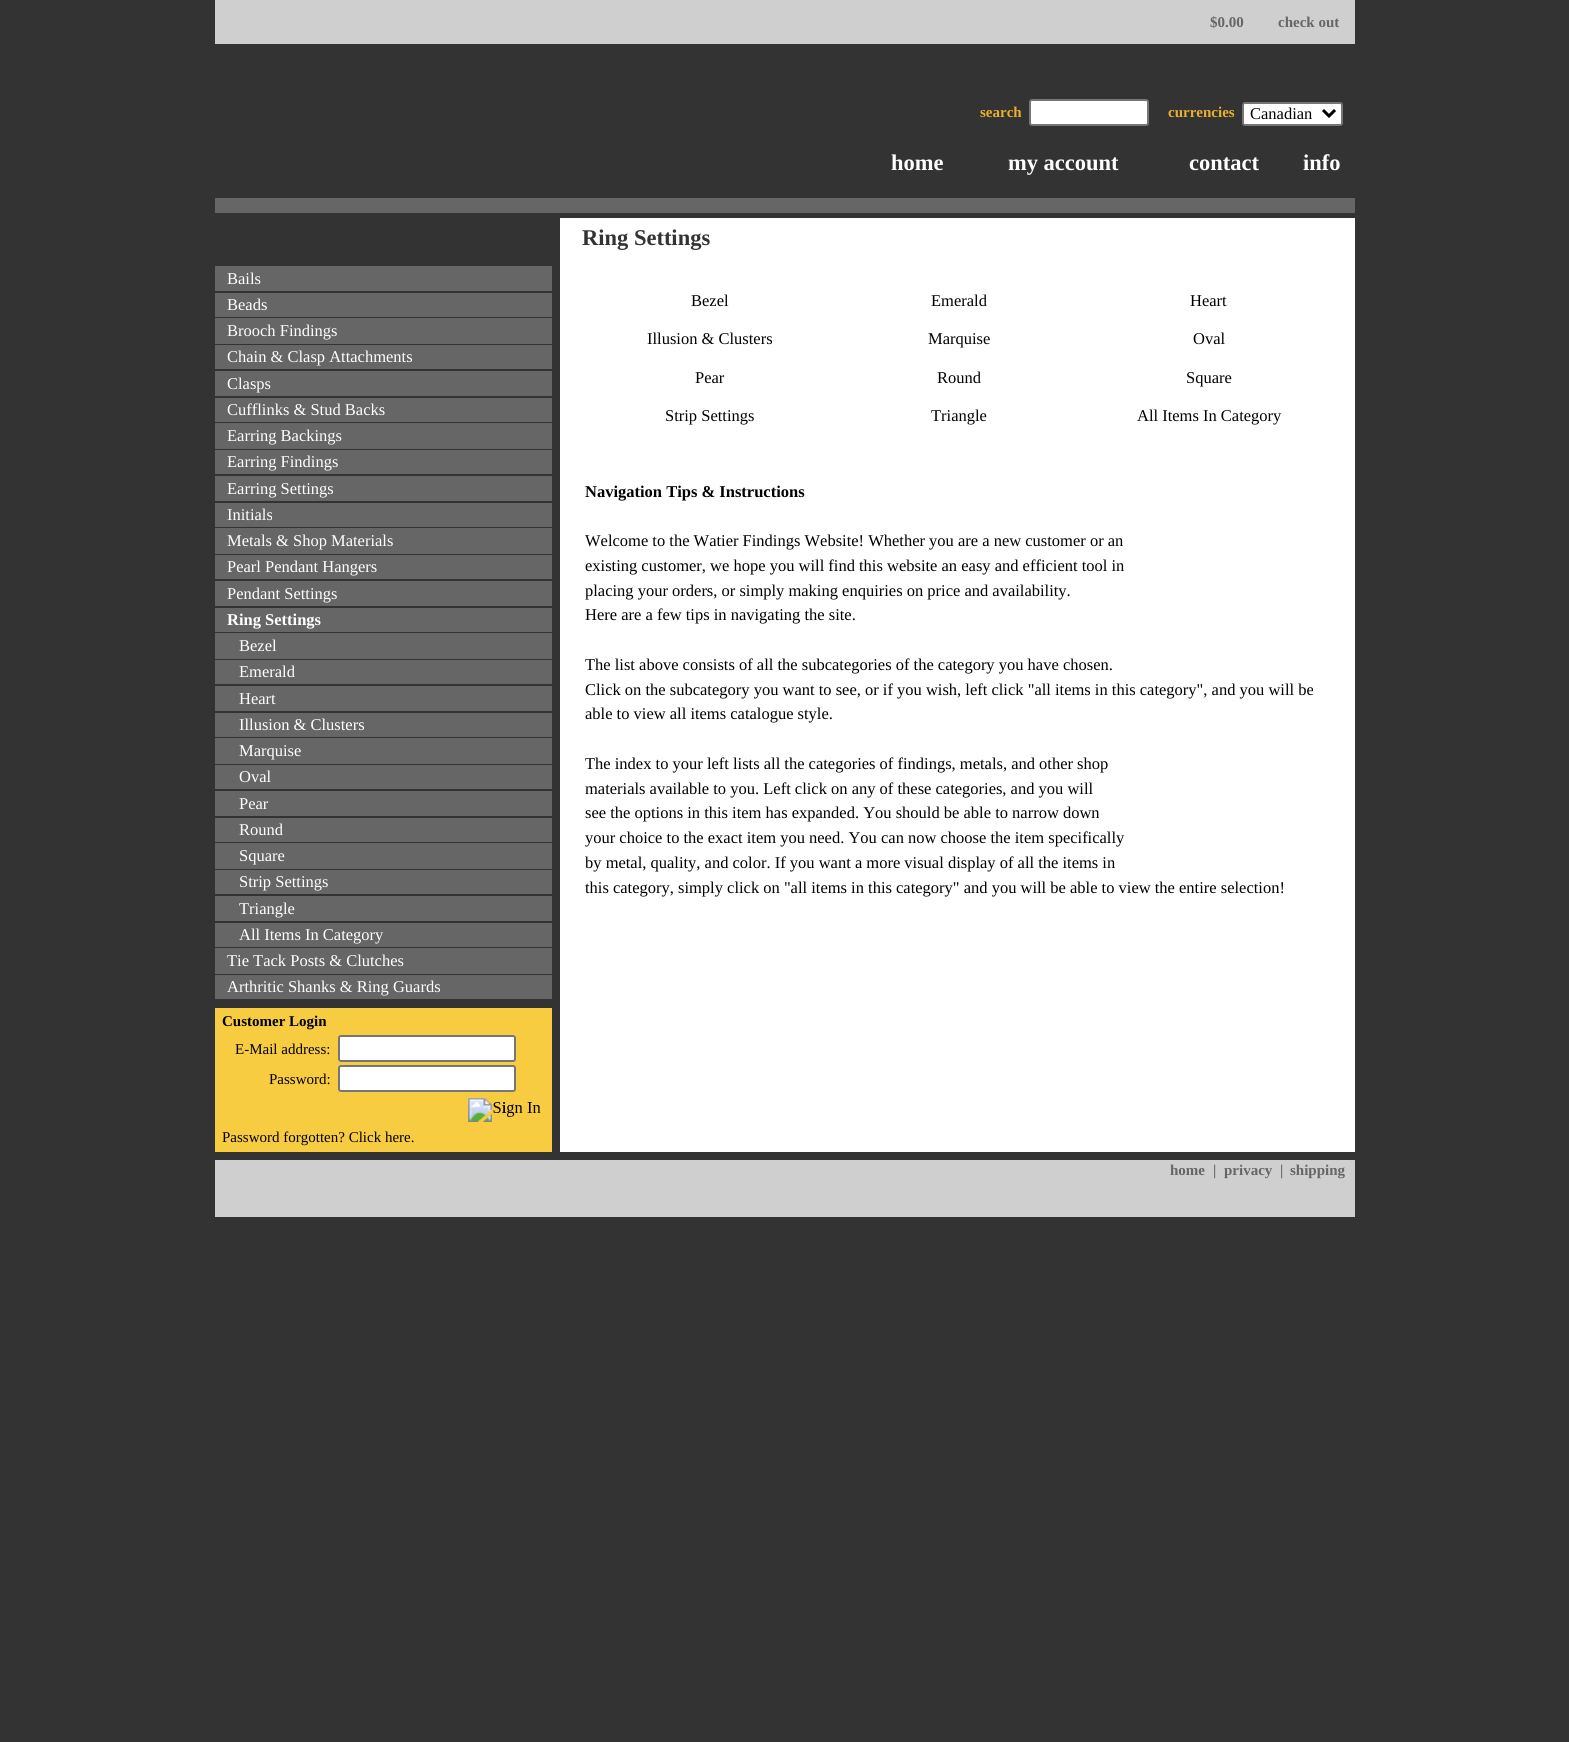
import math
import cairo


def round_path(ctx, x, y, w, h, r):
	ctx.new_sub_path()
	for i, (u, v) in enumerate([(x + w - r, y + h - r), (x + r, y + h - r), (x + r, y + r), (x + w - r, y + r)]):
		ctx.arc(u, v, r, i * math.pi / 2, (i + 1) * math.pi / 2)
	ctx.close_path()

def paste(ctx, path, x, y, w, h):
	ctx.save()
	ctx.set_source_surface(cairo.ImageSurface.create_from_png(path), x, y)
	ctx.rectangle(x, y, w, h)
	ctx.fill()
	ctx.restore()

def draw(ctx):
	ctx.set_source_rgb(0.2, 0.2, 0.2)
	ctx.paint()
	ctx.set_source_rgb(0.812, 0.812, 0.812)
	ctx.rectangle(215, 0, 1140, 44)
	ctx.fill()
	ctx.select_font_face('Liberation Serif', cairo.FONT_SLANT_NORMAL, cairo.FONT_WEIGHT_BOLD)
	ctx.set_font_size(15)
	ctx.set_source_rgb(0.4, 0.4, 0.4)
	ctx.move_to(1210, 27)
	ctx.show_text('$0.00')
	ctx.move_to(1278, 27)
	ctx.show_text('check out')
	ctx.set_source_rgb(0.914, 0.69, 0.176)
	ctx.move_to(980, 117)
	ctx.show_text('search')
	ctx.set_source_rgb(1, 1, 1)
	round_path(ctx, 1030, 100, 118, 25, 2)
	ctx.fill_preserve()
	ctx.set_source_rgb(0.463, 0.463, 0.463)
	ctx.stroke()
	ctx.set_source_rgb(0.914, 0.69, 0.176)
	ctx.move_to(1168, 117)
	ctx.show_text('currencies')
	ctx.set_source_rgb(1, 1, 1)
	round_path(ctx, 1243, 103, 99, 22, 2)
	ctx.fill_preserve()
	ctx.set_source_rgb(0.463, 0.463, 0.463)
	ctx.stroke()
	ctx.new_path()
	ctx.move_to(1323, 110)
	ctx.line_to(1329, 116)
	ctx.line_to(1335, 110)
	ctx.set_source_rgb(0, 0, 0)
	ctx.set_line_width(3)
	ctx.stroke()
	ctx.select_font_face('Liberation Serif')
	ctx.set_font_size(16.5)
	ctx.move_to(1250, 119)
	ctx.show_text('Canadian')
	ctx.select_font_face('Liberation Serif', cairo.FONT_SLANT_NORMAL, cairo.FONT_WEIGHT_BOLD)
	ctx.set_font_size(22.5)
	ctx.set_source_rgb(1, 1, 1)
	for x, y, s in [
		(891, 170, 'home'),
		(1008, 170, 'my account'),
		(1189, 170, 'contact'),
		(1303, 170, 'info'),
	]:
		ctx.move_to(x, y)
		ctx.show_text(s)
	ctx.set_source_rgb(0.4, 0.4, 0.4)
	ctx.rectangle(215, 198, 1140, 15)
	ctx.fill()
	ctx.rectangle(215, 266, 337, 25)
	ctx.fill()
	ctx.select_font_face('Liberation Serif')
	ctx.set_font_size(16.5)
	ctx.set_source_rgb(1, 1, 1)
	ctx.move_to(227, 284)
	ctx.show_text('Bails')
	ctx.set_source_rgb(0.4, 0.4, 0.4)
	ctx.rectangle(215, 293, 337, 24)
	ctx.fill()
	ctx.set_source_rgb(1, 1, 1)
	ctx.move_to(227, 310)
	ctx.show_text('Beads')
	ctx.set_source_rgb(0.4, 0.4, 0.4)
	ctx.rectangle(215, 318, 337, 26)
	ctx.fill()
	ctx.set_source_rgb(1, 1, 1)
	ctx.move_to(227, 336)
	ctx.show_text('Brooch Findings')
	ctx.set_source_rgb(0.4, 0.4, 0.4)
	ctx.rectangle(215, 345, 337, 24)
	ctx.fill()
	ctx.set_source_rgb(1, 1, 1)
	ctx.move_to(227, 362)
	ctx.show_text('Chain & Clasp Attachments')
	ctx.set_source_rgb(0.4, 0.4, 0.4)
	ctx.rectangle(215, 371, 337, 25)
	ctx.fill()
	ctx.set_source_rgb(1, 1, 1)
	ctx.move_to(227, 389)
	ctx.show_text('Clasps')
	ctx.set_source_rgb(0.4, 0.4, 0.4)
	ctx.rectangle(215, 398, 337, 24)
	ctx.fill()
	ctx.set_source_rgb(1, 1, 1)
	ctx.move_to(227, 415)
	ctx.show_text('Cufflinks & Stud Backs')
	ctx.set_source_rgb(0.4, 0.4, 0.4)
	ctx.rectangle(215, 423, 337, 26)
	ctx.fill()
	ctx.set_source_rgb(1, 1, 1)
	ctx.move_to(227, 441)
	ctx.show_text('Earring Backings')
	ctx.set_source_rgb(0.4, 0.4, 0.4)
	ctx.rectangle(215, 450, 337, 24)
	ctx.fill()
	ctx.set_source_rgb(1, 1, 1)
	ctx.move_to(227, 467)
	ctx.show_text('Earring Findings')
	ctx.set_source_rgb(0.4, 0.4, 0.4)
	ctx.rectangle(215, 476, 337, 25)
	ctx.fill()
	ctx.set_source_rgb(1, 1, 1)
	ctx.move_to(227, 494)
	ctx.show_text('Earring Settings')
	ctx.set_source_rgb(0.4, 0.4, 0.4)
	ctx.rectangle(215, 503, 337, 24)
	ctx.fill()
	ctx.set_source_rgb(1, 1, 1)
	ctx.move_to(227, 520)
	ctx.show_text('Initials')
	ctx.set_source_rgb(0.4, 0.4, 0.4)
	ctx.rectangle(215, 528, 337, 26)
	ctx.fill()
	ctx.set_source_rgb(1, 1, 1)
	ctx.move_to(227, 546)
	ctx.show_text('Metals & Shop Materials')
	ctx.set_source_rgb(0.4, 0.4, 0.4)
	ctx.rectangle(215, 555, 337, 24)
	ctx.fill()
	ctx.set_source_rgb(1, 1, 1)
	ctx.move_to(227, 572)
	ctx.show_text('Pearl Pendant Hangers')
	ctx.set_source_rgb(0.4, 0.4, 0.4)
	ctx.rectangle(215, 581, 337, 25)
	ctx.fill()
	ctx.set_source_rgb(1, 1, 1)
	ctx.move_to(227, 599)
	ctx.show_text('Pendant Settings')
	ctx.set_source_rgb(0.4, 0.4, 0.4)
	ctx.rectangle(215, 608, 337, 24)
	ctx.fill()
	ctx.select_font_face('Liberation Serif', cairo.FONT_SLANT_NORMAL, cairo.FONT_WEIGHT_BOLD)
	ctx.set_source_rgb(1, 1, 1)
	ctx.move_to(227, 625)
	ctx.show_text('Ring Settings')
	ctx.set_source_rgb(0.4, 0.4, 0.4)
	ctx.rectangle(215, 633, 337, 26)
	ctx.fill()
	ctx.select_font_face('Liberation Serif')
	ctx.set_source_rgb(1, 1, 1)
	ctx.move_to(239, 651)
	ctx.show_text('Bezel')
	ctx.set_source_rgb(0.4, 0.4, 0.4)
	ctx.rectangle(215, 660, 337, 24)
	ctx.fill()
	ctx.set_source_rgb(1, 1, 1)
	ctx.move_to(239, 677)
	ctx.show_text('Emerald')
	ctx.set_source_rgb(0.4, 0.4, 0.4)
	ctx.rectangle(215, 686, 337, 25)
	ctx.fill()
	ctx.set_source_rgb(1, 1, 1)
	ctx.move_to(239, 704)
	ctx.show_text('Heart')
	ctx.set_source_rgb(0.4, 0.4, 0.4)
	ctx.rectangle(215, 713, 337, 24)
	ctx.fill()
	ctx.set_source_rgb(1, 1, 1)
	ctx.move_to(239, 730)
	ctx.show_text('Illusion & Clusters')
	ctx.set_source_rgb(0.4, 0.4, 0.4)
	ctx.rectangle(215, 738, 337, 26)
	ctx.fill()
	ctx.set_source_rgb(1, 1, 1)
	ctx.move_to(239, 756)
	ctx.show_text('Marquise')
	ctx.set_source_rgb(0.4, 0.4, 0.4)
	ctx.rectangle(215, 765, 337, 24)
	ctx.fill()
	ctx.set_source_rgb(1, 1, 1)
	ctx.move_to(239, 782)
	ctx.show_text('Oval')
	ctx.set_source_rgb(0.4, 0.4, 0.4)
	ctx.rectangle(215, 791, 337, 25)
	ctx.fill()
	ctx.set_source_rgb(1, 1, 1)
	ctx.move_to(239, 809)
	ctx.show_text('Pear')
	ctx.set_source_rgb(0.4, 0.4, 0.4)
	ctx.rectangle(215, 818, 337, 24)
	ctx.fill()
	ctx.set_source_rgb(1, 1, 1)
	ctx.move_to(239, 835)
	ctx.show_text('Round')
	ctx.set_source_rgb(0.4, 0.4, 0.4)
	ctx.rectangle(215, 843, 337, 26)
	ctx.fill()
	ctx.set_source_rgb(1, 1, 1)
	ctx.move_to(239, 861)
	ctx.show_text('Square')
	ctx.set_source_rgb(0.4, 0.4, 0.4)
	ctx.rectangle(215, 870, 337, 24)
	ctx.fill()
	ctx.set_source_rgb(1, 1, 1)
	ctx.move_to(239, 887)
	ctx.show_text('Strip Settings')
	ctx.set_source_rgb(0.4, 0.4, 0.4)
	ctx.rectangle(215, 896, 337, 25)
	ctx.fill()
	ctx.set_source_rgb(1, 1, 1)
	ctx.move_to(239, 914)
	ctx.show_text('Triangle')
	ctx.set_source_rgb(0.4, 0.4, 0.4)
	ctx.rectangle(215, 923, 337, 24)
	ctx.fill()
	ctx.set_source_rgb(1, 1, 1)
	ctx.move_to(239, 940)
	ctx.show_text('All Items In Category')
	ctx.set_source_rgb(0.4, 0.4, 0.4)
	ctx.rectangle(215, 948, 337, 26)
	ctx.fill()
	ctx.set_source_rgb(1, 1, 1)
	ctx.move_to(227, 966)
	ctx.show_text('Tie Tack Posts & Clutches')
	ctx.set_source_rgb(0.4, 0.4, 0.4)
	ctx.rectangle(215, 975, 337, 24)
	ctx.fill()
	ctx.set_source_rgb(1, 1, 1)
	ctx.move_to(227, 992)
	ctx.show_text('Arthritic Shanks & Ring Guards')
	ctx.set_source_rgb(0.969, 0.8, 0.255)
	ctx.rectangle(215, 1008, 337, 144)
	ctx.fill()
	ctx.select_font_face('Liberation Serif', cairo.FONT_SLANT_NORMAL, cairo.FONT_WEIGHT_BOLD)
	ctx.set_font_size(15)
	ctx.set_source_rgb(0, 0, 0)
	ctx.move_to(222, 1026)
	ctx.show_text('Customer Login')
	ctx.select_font_face('Liberation Serif')
	ctx.move_to(235, 1054)
	ctx.show_text('E-Mail address:')
	ctx.set_source_rgb(1, 1, 1)
	round_path(ctx, 339, 1036, 176, 25, 2)
	ctx.fill_preserve()
	ctx.set_source_rgb(0.463, 0.463, 0.463)
	ctx.set_line_width(2)
	ctx.stroke()
	ctx.set_source_rgb(0, 0, 0)
	ctx.move_to(269, 1084)
	ctx.show_text('Password:')
	ctx.set_source_rgb(1, 1, 1)
	round_path(ctx, 339, 1066, 176, 25, 2)
	ctx.fill_preserve()
	ctx.set_source_rgb(0.463, 0.463, 0.463)
	ctx.stroke()
	paste(ctx, 'media/1.png', 468, 1098, 73, 24)
	ctx.set_font_size(16.5)
	ctx.set_source_rgb(0, 0, 0)
	ctx.move_to(502, 1113)
	ctx.show_text('i')
	ctx.set_font_size(15)
	ctx.move_to(222, 1142)
	ctx.show_text('Password forgotten? Click here.')
	ctx.set_source_rgb(1, 1, 1)
	ctx.rectangle(560, 218, 795, 934)
	ctx.fill()
	ctx.select_font_face('Liberation Serif', cairo.FONT_SLANT_NORMAL, cairo.FONT_WEIGHT_BOLD)
	ctx.set_font_size(22.5)
	ctx.set_source_rgb(0.2, 0.2, 0.2)
	ctx.move_to(582, 245)
	ctx.show_text('Ring Settings')
	ctx.select_font_face('Liberation Serif')
	ctx.set_font_size(16.5)
	ctx.set_source_rgb(0, 0, 0)
	for x, y, s in [
		(691, 306, 'Bezel'),
		(931, 306, 'Emerald'),
		(1190, 306, 'Heart'),
		(647, 344, 'Illusion & Clusters'),
		(928, 344, 'Marquise'),
		(1193, 344, 'Oval'),
		(695, 383, 'Pear'),
		(937, 383, 'Round'),
		(1186, 383, 'Square'),
		(665, 421, 'Strip Settings'),
		(931, 421, 'Triangle'),
		(1137, 421, 'All Items In Category'),
	]:
		ctx.move_to(x, y)
		ctx.show_text(s)
	ctx.select_font_face('Liberation Serif', cairo.FONT_SLANT_NORMAL, cairo.FONT_WEIGHT_BOLD)
	ctx.move_to(585, 497)
	ctx.show_text('Navigation Tips & Instructions')
	ctx.select_font_face('Liberation Serif')
	for x, y, s in [
		(585, 546, 'Welcome to the Watier Findings Website! Whether you are a new customer or an'),
		(585, 571, 'existing customer, we hope you will find this website an easy and efficient tool in'),
		(585, 596, 'placing your orders, or simply making enquiries on price and availability.'),
		(585, 620, 'Here are a few tips in navigating the site.'),
		(585, 670, 'The list above consists of all the subcategories of the category you have chosen.'),
		(585, 695, 'Click on the subcategory you want to see, or if you wish, left click "all items in this category", and you will be'),
		(585, 719, 'able to view all items catalogue style.'),
		(585, 769, 'The index to your left lists all the categories of findings, metals, and other shop'),
		(585, 794, 'materials available to you. Left click on any of these categories, and you will'),
		(585, 818, 'see the options in this item has expanded. You should be able to narrow down'),
		(585, 843, 'your choice to the exact item you need. You can now choose the item specifically'),
		(585, 868, 'by metal, quality, and color. If you want a more visual display of all the items in'),
		(585, 893, 'this category, simply click on "all items in this category" and you will be able to view the entire selection!'),
	]:
		ctx.move_to(x, y)
		ctx.show_text(s)
	ctx.set_source_rgb(0.812, 0.812, 0.812)
	ctx.rectangle(215, 1160, 1140, 57)
	ctx.fill()
	ctx.select_font_face('Liberation Serif', cairo.FONT_SLANT_NORMAL, cairo.FONT_WEIGHT_BOLD)
	ctx.set_font_size(15)
	ctx.set_source_rgb(0.4, 0.4, 0.4)
	for x, y, s in [
		(1170, 1175, 'home'),
		(1213, 1175, '|'),
		(1224, 1175, 'privacy'),
		(1280, 1175, '|'),
		(1290, 1175, 'shipping'),
	]:
		ctx.move_to(x, y)
		ctx.show_text(s)


surface = cairo.ImageSurface(cairo.FORMAT_RGB24, 1569, 1742)
ctx = cairo.Context(surface)
options = cairo.FontOptions()
options.set_hint_metrics(cairo.HINT_METRICS_OFF)
options.set_hint_style(cairo.HINT_STYLE_NONE)
ctx.set_font_options(options)
ctx.set_miter_limit(4)
draw(ctx)
surface.write_to_png('image.png')
